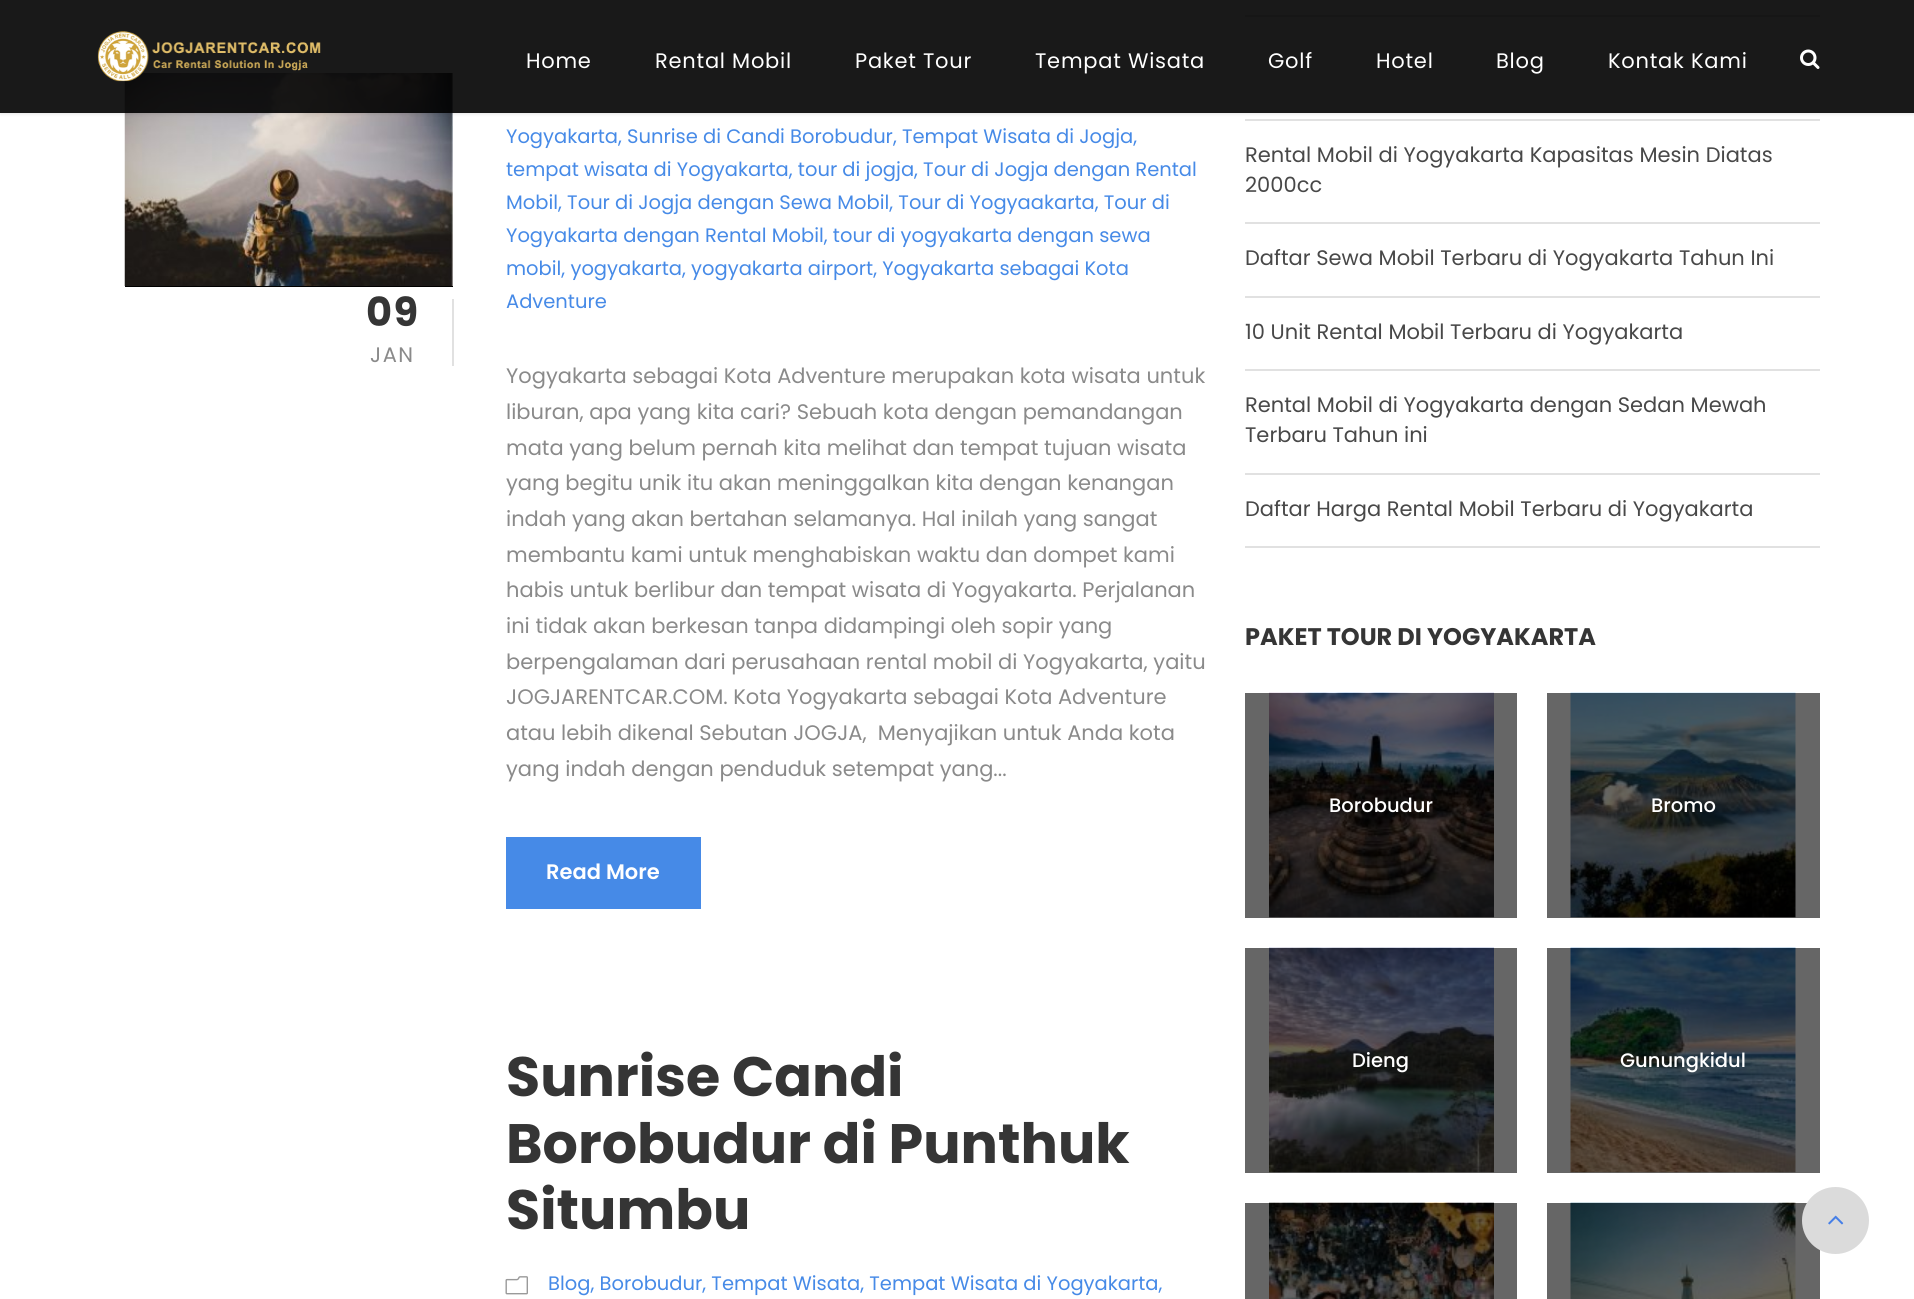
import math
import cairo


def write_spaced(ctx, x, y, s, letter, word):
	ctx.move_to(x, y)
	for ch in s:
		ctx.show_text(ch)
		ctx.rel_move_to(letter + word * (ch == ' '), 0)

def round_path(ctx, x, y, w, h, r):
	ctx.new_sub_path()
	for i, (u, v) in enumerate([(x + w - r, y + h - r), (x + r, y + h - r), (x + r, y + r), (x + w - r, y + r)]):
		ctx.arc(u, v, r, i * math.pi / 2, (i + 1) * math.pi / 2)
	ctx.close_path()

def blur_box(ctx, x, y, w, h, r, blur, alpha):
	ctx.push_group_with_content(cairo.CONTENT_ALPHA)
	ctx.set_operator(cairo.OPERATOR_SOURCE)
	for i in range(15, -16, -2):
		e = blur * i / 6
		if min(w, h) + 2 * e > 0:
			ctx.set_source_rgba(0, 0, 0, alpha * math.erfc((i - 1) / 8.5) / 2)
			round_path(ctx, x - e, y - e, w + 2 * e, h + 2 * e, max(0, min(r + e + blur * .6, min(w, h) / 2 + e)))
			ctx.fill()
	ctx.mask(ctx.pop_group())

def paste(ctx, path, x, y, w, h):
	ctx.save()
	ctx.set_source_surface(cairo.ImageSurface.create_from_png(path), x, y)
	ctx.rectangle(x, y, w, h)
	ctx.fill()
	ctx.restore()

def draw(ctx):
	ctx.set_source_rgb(1, 1, 1)
	ctx.paint()
	paste(ctx, 'media/3.png', 124, 73, 329, 213)
	ctx.set_source_rgb(0.882, 0.882, 0.882)
	ctx.rectangle(1245, 15, 575, 2)
	ctx.fill()
	ctx.rectangle(1245, 119, 575, 2)
	ctx.fill()
	ctx.save()
	ctx.set_fill_rule(cairo.FILL_RULE_EVEN_ODD)
	ctx.new_path()
	ctx.move_to(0, 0)
	ctx.line_to(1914, 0)
	ctx.line_to(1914, 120)
	ctx.line_to(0, 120)
	ctx.close_path()
	ctx.move_to(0, 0)
	ctx.line_to(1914, 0)
	ctx.line_to(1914, 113)
	ctx.line_to(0, 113)
	ctx.close_path()
	ctx.clip()
	ctx.set_source_rgb(0, 0, 0)
	blur_box(ctx, 0, 2, 1914, 112, 0, 1.5, 0.1)
	ctx.restore()
	ctx.set_source_rgba(0, 0, 0, 0.9)
	ctx.rectangle(0, 0, 1914, 113)
	ctx.fill()
	paste(ctx, 'media/1.png', 97, 31, 224, 51)
	ctx.select_font_face('Poppins')
	ctx.set_font_size(21)
	ctx.set_source_rgb(1, 1, 1)
	for x, y, s in [
		(526, 68, 'Home'),
		(655, 68, 'Rental Mobil'),
		(855, 68, 'Paket Tour'),
		(1035, 68, 'Tempat Wisata'),
		(1268, 68, 'Golf'),
		(1376, 68, 'Hotel'),
		(1496, 68, 'Blog'),
		(1608, 68, 'Kontak Kami'),
	]:
		write_spaced(ctx, x, y, s, 0.75, 0)
	paste(ctx, 'media/2.png', 1800, 49, 20, 20)
	ctx.set_source_rgb(0.4, 0.4, 0.4)
	ctx.rectangle(1547, 1203, 273, 96)
	ctx.rectangle(1547, 948, 273, 225)
	ctx.rectangle(1245, 948, 272, 225)
	ctx.rectangle(1547, 693, 273, 225)
	ctx.rectangle(1245, 693, 272, 225)
	ctx.fill()
	ctx.set_source_rgb(0, 0, 0)
	ctx.rectangle(125, 286, 328, 1)
	ctx.fill()
	ctx.set_source_rgb(0.882, 0.882, 0.882)
	ctx.rectangle(452, 299, 2, 67)
	ctx.fill()
	ctx.select_font_face('Poppins', cairo.FONT_SLANT_NORMAL, cairo.FONT_WEIGHT_BOLD)
	ctx.set_font_size(40)
	ctx.set_source_rgb(0.208, 0.208, 0.208)
	write_spaced(ctx, 366, 326, '09', 1.5, 0)
	ctx.select_font_face('Poppins')
	ctx.set_font_size(21)
	ctx.set_source_rgb(0.541, 0.541, 0.541)
	write_spaced(ctx, 370, 362, 'JAN', 1.5, 0)
	ctx.set_font_size(19.5)
	ctx.set_source_rgb(0.275, 0.541, 0.906)
	for x, y, s in [
		(506, 143, 'Yogyakarta, Sunrise di Candi Borobudur, Tempat Wisata di Jogja,'),
		(506, 176, 'tempat wisata di Yogyakarta, tour di jogja, Tour di Jogja dengan Rental'),
		(506, 209, 'Mobil, Tour di Jogja dengan Sewa Mobil, Tour di Yogyaakarta, Tour di'),
		(506, 242, 'Yogyakarta dengan Rental Mobil, tour di yogyakarta dengan sewa'),
		(506, 275, 'mobil, yogyakarta, yogyakarta airport, Yogyakarta sebagai Kota'),
		(506, 308, 'Adventure'),
	]:
		ctx.move_to(x, y)
		ctx.show_text(s)
	ctx.set_font_size(21)
	ctx.set_source_rgb(0.541, 0.541, 0.541)
	for x, y, s in [
		(506, 383, 'Yogyakarta sebagai Kota Adventure merupakan kota wisata untuk'),
		(506, 419, 'liburan, apa yang kita cari? Sebuah kota dengan pemandangan'),
		(506, 455, 'mata yang belum pernah kita melihat dan tempat tujuan wisata'),
		(506, 490, 'yang begitu unik itu akan meninggalkan kita dengan kenangan'),
		(506, 526, 'indah yang akan bertahan selamanya. Hal inilah yang sangat'),
		(506, 562, 'membantu kami untuk menghabiskan waktu dan dompet kami'),
		(506, 597, 'habis untuk berlibur dan tempat wisata di Yogyakarta. Perjalanan'),
		(506, 633, 'ini tidak akan berkesan tanpa didampingi oleh sopir yang'),
		(506, 669, 'berpengalaman dari perusahaan rental mobil di Yogyakarta, yaitu'),
		(506, 704, 'JOGJARENTCAR.COM. Kota Yogyakarta sebagai Kota Adventure'),
		(506, 740, 'atau lebih dikenal Sebutan JOGJA,  Menyajikan untuk Anda kota'),
		(506, 776, 'yang indah dengan penduduk setempat yang...'),
	]:
		ctx.move_to(x, y)
		ctx.show_text(s)
	ctx.set_source_rgb(0.275, 0.541, 0.906)
	ctx.rectangle(506, 837, 195, 72)
	ctx.fill()
	ctx.select_font_face('Poppins SemiBold')
	ctx.set_source_rgb(1, 1, 1)
	ctx.move_to(546, 879)
	ctx.show_text('Read More')
	ctx.select_font_face('Poppins', cairo.FONT_SLANT_NORMAL, cairo.FONT_WEIGHT_BOLD)
	ctx.set_font_size(55.5)
	ctx.set_source_rgb(0.208, 0.208, 0.208)
	for x, y, s in [
		(506, 1096, 'Sunrise Candi'),
		(506, 1163, 'Borobudur di Punthuk'),
		(506, 1229, 'Situmbu'),
	]:
		ctx.move_to(x, y)
		ctx.show_text(s)
	paste(ctx, 'media/4.png', 505, 1276, 23, 19)
	ctx.select_font_face('Poppins')
	ctx.set_font_size(19.5)
	ctx.set_source_rgb(0.275, 0.541, 0.906)
	ctx.move_to(548, 1290)
	ctx.show_text('Blog, Borobudur, Tempat Wisata, Tempat Wisata di Yogyakarta,')
	ctx.set_source_rgb(0.882, 0.882, 0.882)
	ctx.rectangle(1245, 222, 575, 2)
	ctx.fill()
	ctx.set_font_size(21)
	ctx.set_source_rgb(0.282, 0.282, 0.282)
	ctx.move_to(1245, 162)
	ctx.show_text('Rental Mobil di Yogyakarta Kapasitas Mesin Diatas')
	ctx.move_to(1245, 192)
	ctx.show_text('2000cc')
	ctx.set_source_rgb(0.882, 0.882, 0.882)
	ctx.rectangle(1245, 296, 575, 2)
	ctx.fill()
	ctx.set_source_rgb(0.282, 0.282, 0.282)
	ctx.move_to(1245, 265)
	ctx.show_text('Daftar Sewa Mobil Terbaru di Yogyakarta Tahun Ini')
	ctx.set_source_rgb(0.882, 0.882, 0.882)
	ctx.rectangle(1245, 369, 575, 2)
	ctx.fill()
	ctx.set_source_rgb(0.282, 0.282, 0.282)
	ctx.move_to(1245, 339)
	ctx.show_text('10 Unit Rental Mobil Terbaru di Yogyakarta')
	ctx.set_source_rgb(0.882, 0.882, 0.882)
	ctx.rectangle(1245, 473, 575, 2)
	ctx.fill()
	ctx.set_source_rgb(0.282, 0.282, 0.282)
	ctx.move_to(1245, 412)
	ctx.show_text('Rental Mobil di Yogyakarta dengan Sedan Mewah')
	ctx.move_to(1245, 442)
	ctx.show_text('Terbaru Tahun ini')
	ctx.set_source_rgb(0.882, 0.882, 0.882)
	ctx.rectangle(1245, 546, 575, 2)
	ctx.fill()
	ctx.set_source_rgb(0.282, 0.282, 0.282)
	ctx.move_to(1245, 516)
	ctx.show_text('Daftar Harga Rental Mobil Terbaru di Yogyakarta')
	ctx.select_font_face('Poppins', cairo.FONT_SLANT_NORMAL, cairo.FONT_WEIGHT_BOLD)
	ctx.set_font_size(24)
	ctx.set_source_rgb(0.208, 0.208, 0.208)
	ctx.move_to(1245, 645)
	ctx.show_text('PAKET TOUR DI YOGYAKARTA')
	paste(ctx, 'media/5.png', 1269, 692, 225, 226)
	ctx.select_font_face('Poppins Medium')
	ctx.set_font_size(19.5)
	ctx.set_source_rgb(1, 1, 1)
	ctx.move_to(1329, 812)
	ctx.show_text('Borobudur')
	paste(ctx, 'media/6.png', 1570, 692, 226, 226)
	ctx.move_to(1651, 812)
	ctx.show_text('Bromo')
	paste(ctx, 'media/7.png', 1269, 947, 225, 226)
	ctx.move_to(1352, 1067)
	ctx.show_text('Dieng')
	paste(ctx, 'media/8.png', 1570, 947, 226, 226)
	ctx.move_to(1620, 1067)
	ctx.show_text('Gunungkidul')
	paste(ctx, 'media/9.png', 1269, 1202, 225, 97)
	ctx.set_source_rgba(0, 0, 0, 0.6)
	ctx.rectangle(1245, 1203, 272, 96)
	ctx.fill()
	paste(ctx, 'media/10.png', 1570, 1202, 226, 97)
	ctx.set_source_rgb(0.859, 0.859, 0.859)
	ctx.arc(1835.5, 1220.5, 33.5, 0, 2 * math.pi)
	ctx.fill()
	paste(ctx, 'media/11.png', 1828, 1215, 16, 10)


surface = cairo.ImageSurface(cairo.FORMAT_RGB24, 1914, 1299)
ctx = cairo.Context(surface)
options = cairo.FontOptions()
options.set_hint_metrics(cairo.HINT_METRICS_OFF)
options.set_hint_style(cairo.HINT_STYLE_NONE)
ctx.set_font_options(options)
ctx.set_miter_limit(4)
draw(ctx)
surface.write_to_png('image.png')
